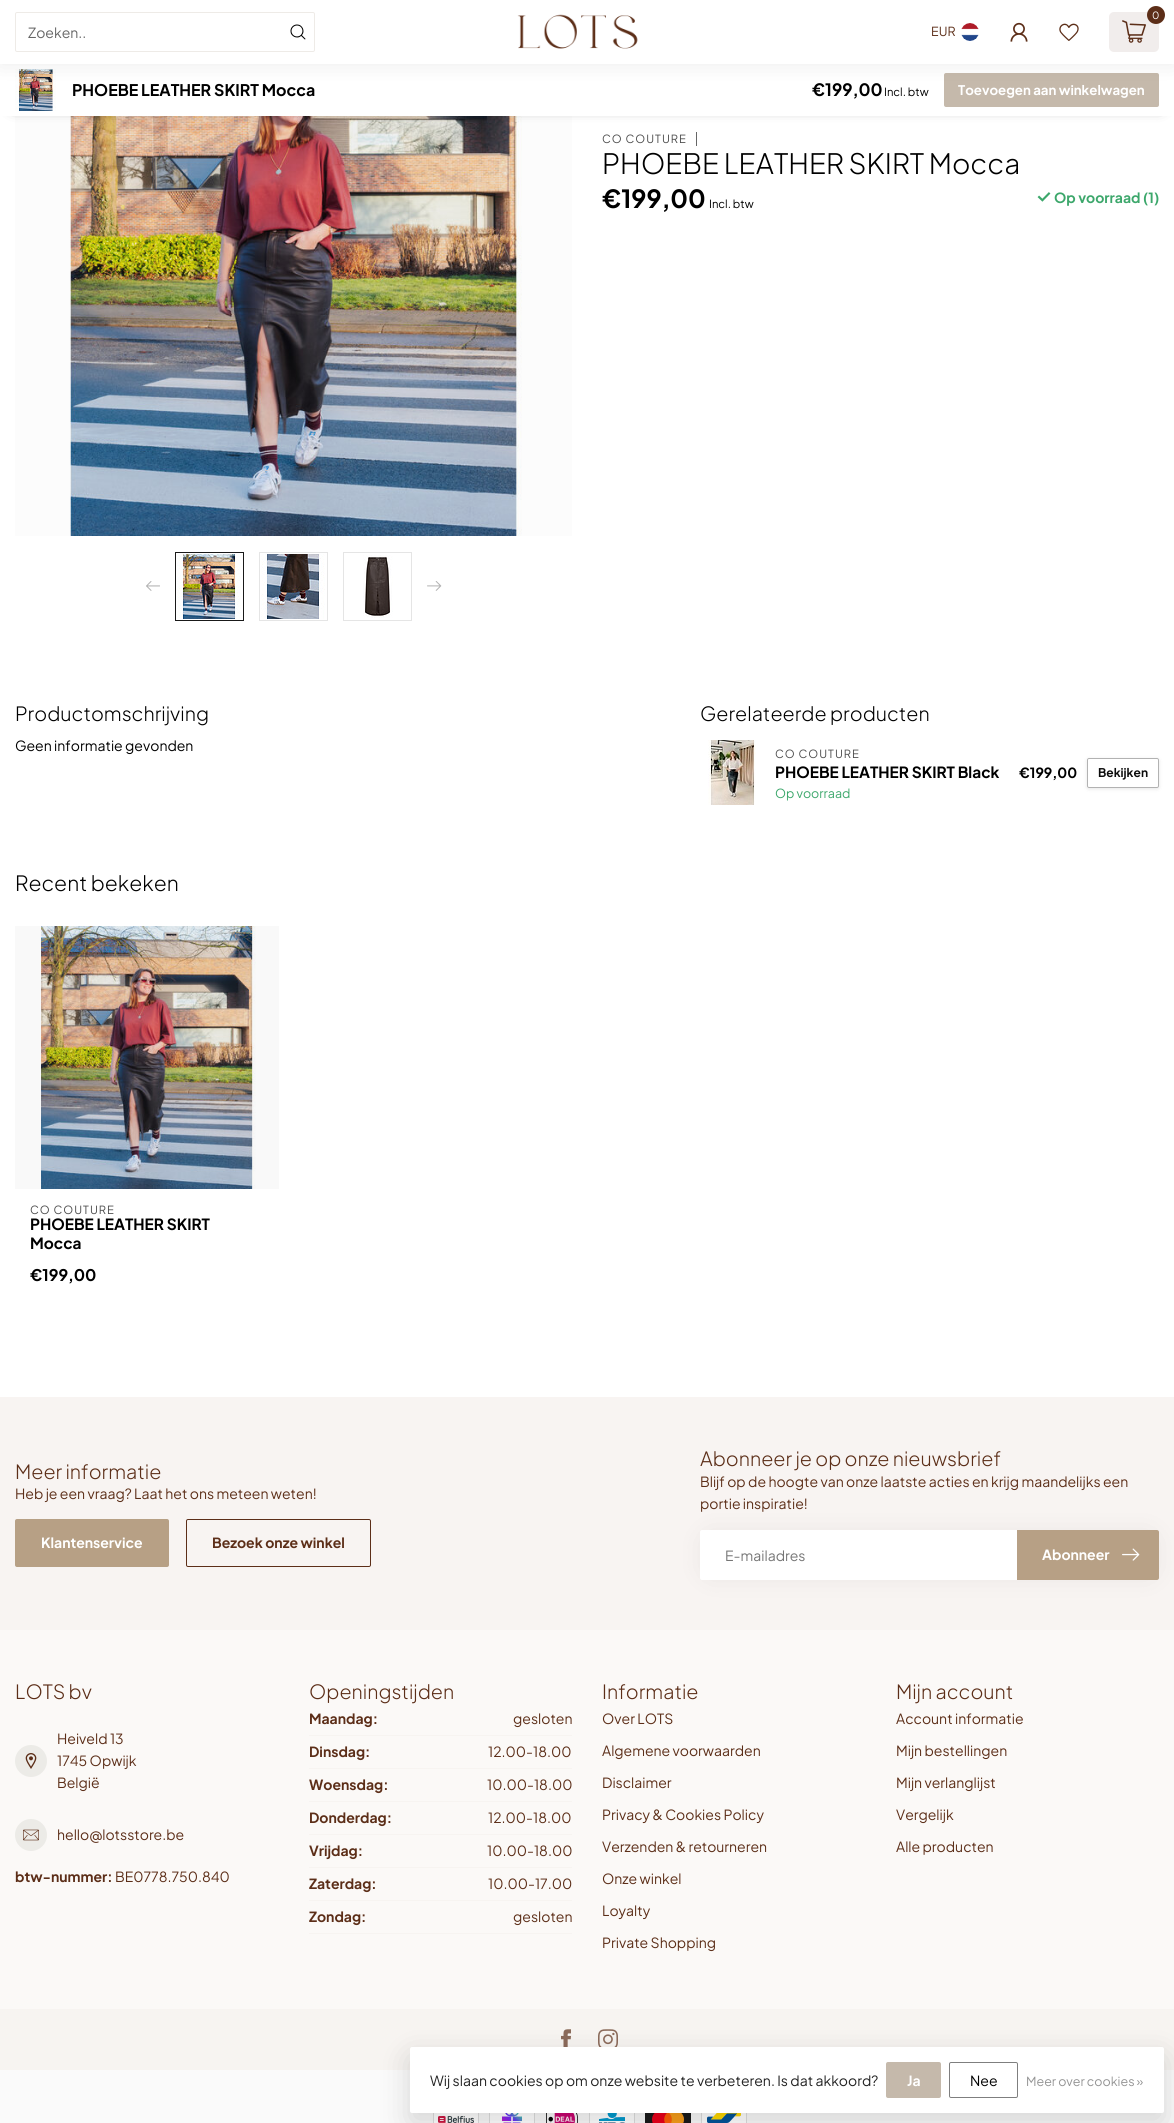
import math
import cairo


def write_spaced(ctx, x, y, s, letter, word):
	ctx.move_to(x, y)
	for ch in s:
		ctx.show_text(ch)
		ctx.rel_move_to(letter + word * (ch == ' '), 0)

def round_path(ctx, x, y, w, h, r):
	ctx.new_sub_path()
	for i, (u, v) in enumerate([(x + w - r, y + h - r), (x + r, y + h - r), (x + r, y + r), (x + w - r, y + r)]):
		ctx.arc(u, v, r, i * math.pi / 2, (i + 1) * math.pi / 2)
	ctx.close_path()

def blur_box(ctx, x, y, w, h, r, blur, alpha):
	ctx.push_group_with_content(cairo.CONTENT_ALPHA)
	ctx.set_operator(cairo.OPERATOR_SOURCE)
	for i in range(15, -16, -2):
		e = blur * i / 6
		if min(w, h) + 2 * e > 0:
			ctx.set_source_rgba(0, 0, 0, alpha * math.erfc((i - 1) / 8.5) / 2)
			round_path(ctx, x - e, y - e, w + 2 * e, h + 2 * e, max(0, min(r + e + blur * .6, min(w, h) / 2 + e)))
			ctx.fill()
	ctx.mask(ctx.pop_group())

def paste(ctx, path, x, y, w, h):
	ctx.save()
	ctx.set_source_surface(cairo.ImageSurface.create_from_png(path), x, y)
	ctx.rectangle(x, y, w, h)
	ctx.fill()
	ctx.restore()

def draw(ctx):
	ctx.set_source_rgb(1, 1, 1)
	ctx.paint()
	ctx.set_source_rgb(0.988, 0.988, 0.988)
	ctx.rectangle(15, 116, 557, 420)
	ctx.fill()
	paste(ctx, 'media/8.png', 70, 116, 452, 420)
	ctx.set_source_rgb(0, 0, 0)
	blur_box(ctx, 14, 80, 1146, 24, 0, 7.5, 1)
	ctx.set_source_rgb(1, 1, 1)
	ctx.rectangle(0, 64, 1174, 52)
	ctx.fill()
	paste(ctx, 'media/7.png', 15, 69, 41, 42)
	ctx.set_source_rgb(0.773, 0.725, 0.671)
	round_path(ctx, 944, 73, 215, 34, 2)
	ctx.fill()
	ctx.set_source_rgb(0, 0, 0)
	blur_box(ctx, 0, -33, 1174, 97, 0, 11, 0.08)
	ctx.set_source_rgb(1, 1, 1)
	ctx.rectangle(0, 0, 1174, 64)
	ctx.fill()
	round_path(ctx, 15.5, 12.5, 299, 39, 1.5)
	ctx.set_source_rgb(0.933, 0.918, 0.906)
	ctx.set_line_width(1)
	ctx.stroke()
	ctx.select_font_face('Plus Jakarta Sans')
	ctx.set_font_size(14)
	ctx.set_source_rgb(0.4, 0.4, 0.4)
	ctx.move_to(28, 38)
	ctx.show_text('Zoeken..')
	paste(ctx, 'media/1.png', 290, 24, 16, 16)
	paste(ctx, 'media/2.png', 517, 14, 121, 35)
	ctx.set_source_rgb(0.945, 0.929, 0.925)
	round_path(ctx, 1109, 12, 50, 40, 5)
	ctx.fill()
	ctx.set_source_rgb(0.361, 0.18, 0.094)
	ctx.arc(1156, 15, 9, 0, 2 * math.pi)
	ctx.fill()
	ctx.set_font_size(10)
	ctx.set_source_rgb(1, 1, 1)
	ctx.move_to(1152, 19)
	ctx.show_text('0')
	paste(ctx, 'media/3.png', 1122, 20, 24, 23)
	ctx.set_font_size(12.5)
	ctx.set_source_rgb(0.361, 0.18, 0.094)
	ctx.move_to(931, 36)
	ctx.show_text('EUR')
	paste(ctx, 'media/4.png', 961, 23, 18, 18)
	paste(ctx, 'media/5.png', 1010, 22, 18, 20)
	paste(ctx, 'media/6.png', 1059, 23, 20, 18)
	ctx.select_font_face('Plus Jakarta Sans', cairo.FONT_SLANT_NORMAL, cairo.FONT_WEIGHT_BOLD)
	ctx.set_font_size(16)
	ctx.set_source_rgb(0, 0, 0)
	ctx.move_to(72, 96)
	ctx.show_text('PHOEBE LEATHER SKIRT Mocca')
	ctx.set_font_size(17)
	ctx.move_to(812, 96)
	ctx.show_text('€199,00')
	ctx.select_font_face('Plus Jakarta Sans')
	ctx.set_font_size(11.25)
	ctx.move_to(884, 96)
	ctx.show_text('Incl. btw')
	ctx.select_font_face('Plus Jakarta Sans', cairo.FONT_SLANT_NORMAL, cairo.FONT_WEIGHT_BOLD)
	ctx.set_font_size(13.25)
	ctx.set_source_rgb(1, 1, 1)
	ctx.move_to(958, 95)
	ctx.show_text('Toevoegen aan winkelwagen')
	paste(ctx, 'media/9.png', 146, 581, 14, 10)
	ctx.rectangle(175.5, 552.5, 68, 68)
	ctx.set_source_rgb(0.098, 0.098, 0.098)
	ctx.stroke()
	paste(ctx, 'media/10.png', 177, 554, 64, 65)
	ctx.rectangle(259.5, 552.5, 68, 68)
	ctx.set_source_rgb(0.898, 0.898, 0.898)
	ctx.stroke()
	paste(ctx, 'media/11.png', 261, 554, 64, 65)
	ctx.rectangle(343.5, 552.5, 68, 68)
	ctx.stroke()
	paste(ctx, 'media/12.png', 363, 555, 30, 63)
	paste(ctx, 'media/13.png', 427, 581, 15, 10)
	ctx.select_font_face('Plus Jakarta Sans')
	ctx.set_font_size(11.25)
	ctx.set_source_rgb(0.302, 0.302, 0.302)
	write_spaced(ctx, 602, 143, 'CO COUTURE', 1, 0)
	ctx.set_source_rgb(0.4, 0.4, 0.4)
	ctx.rectangle(696, 132, 1, 14)
	ctx.fill()
	ctx.select_font_face('Plus Jakarta Sans Light')
	ctx.set_font_size(28)
	ctx.set_source_rgb(0, 0, 0)
	ctx.move_to(602, 174)
	ctx.show_text('PHOEBE LEATHER SKIRT Mocca')
	ctx.select_font_face('Plus Jakarta Sans', cairo.FONT_SLANT_NORMAL, cairo.FONT_WEIGHT_BOLD)
	ctx.set_font_size(25)
	ctx.move_to(602, 208)
	ctx.show_text('€199,00')
	ctx.select_font_face('Plus Jakarta Sans')
	ctx.set_font_size(11.25)
	ctx.move_to(709, 208)
	ctx.show_text('Incl. btw')
	paste(ctx, 'media/14.png', 1037, 192, 14, 10)
	ctx.select_font_face('Plus Jakarta Sans', cairo.FONT_SLANT_NORMAL, cairo.FONT_WEIGHT_BOLD)
	ctx.set_font_size(14)
	ctx.set_source_rgb(0.235, 0.655, 0.42)
	ctx.move_to(1054, 203)
	ctx.show_text('Op voorraad (1)')
	ctx.select_font_face('Plus Jakarta Sans Light')
	ctx.set_font_size(19.6)
	ctx.set_source_rgb(0, 0, 0)
	ctx.move_to(15, 721)
	ctx.show_text('Productomschrijving')
	ctx.select_font_face('Plus Jakarta Sans')
	ctx.set_font_size(14)
	ctx.move_to(15, 751)
	ctx.show_text('Geen informatie gevonden')
	ctx.select_font_face('Plus Jakarta Sans Light')
	ctx.set_font_size(19.6)
	ctx.move_to(700, 721)
	ctx.show_text('Gerelateerde producten')
	paste(ctx, 'media/15.png', 708, 740, 48, 65)
	ctx.select_font_face('Plus Jakarta Sans')
	ctx.set_font_size(11.25)
	ctx.set_source_rgb(0.302, 0.302, 0.302)
	write_spaced(ctx, 775, 758, 'CO COUTURE', 1, 0)
	ctx.select_font_face('Plus Jakarta Sans', cairo.FONT_SLANT_NORMAL, cairo.FONT_WEIGHT_BOLD)
	ctx.set_font_size(15.4)
	ctx.set_source_rgb(0, 0, 0)
	ctx.move_to(775, 778)
	ctx.show_text('PHOEBE LEATHER SKIRT Black')
	ctx.select_font_face('Plus Jakarta Sans')
	ctx.set_font_size(12.5)
	ctx.set_source_rgb(0.235, 0.655, 0.42)
	ctx.move_to(775, 798)
	ctx.show_text('Op voorraad')
	ctx.select_font_face('Plus Jakarta Sans', cairo.FONT_SLANT_NORMAL, cairo.FONT_WEIGHT_BOLD)
	ctx.set_font_size(14)
	ctx.set_source_rgb(0, 0, 0)
	ctx.move_to(1019, 778)
	ctx.show_text('€199,00')
	ctx.save()
	ctx.set_fill_rule(cairo.FILL_RULE_EVEN_ODD)
	ctx.new_path()
	ctx.move_to(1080, 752)
	ctx.line_to(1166, 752)
	ctx.line_to(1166, 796)
	ctx.line_to(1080, 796)
	ctx.close_path()
	ctx.move_to(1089, 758)
	ctx.line_to(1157, 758)
	ctx.curve_to(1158, 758, 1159, 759, 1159, 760)
	ctx.line_to(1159, 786)
	ctx.curve_to(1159, 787, 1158, 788, 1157, 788)
	ctx.line_to(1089, 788)
	ctx.curve_to(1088, 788, 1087, 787, 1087, 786)
	ctx.line_to(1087, 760)
	ctx.curve_to(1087, 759, 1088, 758, 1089, 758)
	ctx.close_path()
	ctx.clip()
	ctx.set_source_rgb(0, 0, 0)
	blur_box(ctx, 1087, 759, 72, 30, 2, 2, 0.1)
	ctx.restore()
	round_path(ctx, 1087.5, 758.5, 71, 29, 1.5)
	ctx.set_source_rgb(0.698, 0.698, 0.698)
	ctx.stroke()
	ctx.set_font_size(12)
	ctx.set_source_rgb(0.047, 0.047, 0.047)
	ctx.move_to(1098, 777)
	ctx.show_text('Bekijken')
	ctx.select_font_face('Plus Jakarta Sans Light')
	ctx.set_font_size(21)
	ctx.set_source_rgb(0, 0, 0)
	ctx.move_to(15, 891)
	ctx.show_text('Recent bekeken')
	paste(ctx, 'media/16.png', 41, 926, 215, 263)
	ctx.set_source_rgba(0.608, 0.608, 0.608, 0.06)
	ctx.rectangle(15, 926, 264, 263)
	ctx.fill()
	ctx.select_font_face('Plus Jakarta Sans')
	ctx.set_font_size(11.25)
	ctx.set_source_rgb(0.302, 0.302, 0.302)
	write_spaced(ctx, 30, 1214, 'CO COUTURE', 1, 0)
	ctx.select_font_face('Plus Jakarta Sans', cairo.FONT_SLANT_NORMAL, cairo.FONT_WEIGHT_BOLD)
	ctx.set_font_size(15.4)
	ctx.set_source_rgb(0, 0, 0)
	ctx.move_to(30, 1230)
	ctx.show_text('PHOEBE LEATHER SKIRT')
	ctx.move_to(30, 1249)
	ctx.show_text('Mocca')
	ctx.set_font_size(16)
	ctx.move_to(30, 1281)
	ctx.show_text('€199,00')
	ctx.set_source_rgb(0.984, 0.976, 0.965)
	ctx.rectangle(0, 1630, 1174, 379)
	ctx.fill()
	ctx.set_source_rgb(0.969, 0.957, 0.949)
	ctx.rectangle(0, 1397, 1174, 233)
	ctx.fill()
	ctx.select_font_face('Plus Jakarta Sans Light')
	ctx.set_font_size(19.6)
	ctx.set_source_rgb(0.361, 0.18, 0.094)
	ctx.move_to(15, 1479)
	ctx.show_text('Meer informatie')
	ctx.select_font_face('Plus Jakarta Sans')
	ctx.set_font_size(14)
	ctx.move_to(15, 1499)
	ctx.show_text('Heb je een vraag? Laat het ons meteen weten!')
	ctx.set_source_rgb(0.718, 0.627, 0.522)
	round_path(ctx, 15, 1519, 154, 48, 2)
	ctx.fill()
	ctx.select_font_face('Plus Jakarta Sans', cairo.FONT_SLANT_NORMAL, cairo.FONT_WEIGHT_BOLD)
	ctx.set_source_rgb(1, 1, 1)
	ctx.move_to(41, 1548)
	ctx.show_text('Klantenservice')
	round_path(ctx, 186.5, 1519.5, 184, 47, 1.5)
	ctx.set_source_rgb(0.361, 0.18, 0.094)
	ctx.stroke()
	ctx.move_to(212, 1548)
	ctx.show_text('Bezoek onze winkel')
	ctx.select_font_face('Plus Jakarta Sans Light')
	ctx.set_font_size(19.6)
	ctx.move_to(700, 1466)
	ctx.show_text('Abonneer je op onze nieuwsbrief')
	ctx.select_font_face('Plus Jakarta Sans')
	ctx.set_font_size(14)
	ctx.move_to(700, 1487)
	ctx.show_text('Blijf op de hoogte van onze laatste acties en krijg maandelijks een')
	ctx.set_source_rgb(0, 0, 0)
	blur_box(ctx, 710, 1540, 439, 30, 0, 15, 0.1)
	ctx.set_source_rgb(0.361, 0.18, 0.094)
	ctx.move_to(700, 1509)
	ctx.show_text('portie inspiratie!')
	ctx.set_source_rgb(1, 1, 1)
	ctx.new_path()
	ctx.move_to(702, 1530)
	ctx.line_to(1017, 1530)
	ctx.line_to(1017, 1580)
	ctx.line_to(702, 1580)
	ctx.curve_to(701, 1580, 700, 1579, 700, 1578)
	ctx.line_to(700, 1532)
	ctx.curve_to(700, 1531, 701, 1530, 702, 1530)
	ctx.close_path()
	ctx.fill()
	ctx.set_source_rgb(0.459, 0.459, 0.459)
	ctx.move_to(725, 1561)
	ctx.show_text('E-mailadres')
	ctx.set_source_rgb(0.718, 0.627, 0.522)
	ctx.new_path()
	ctx.move_to(1017, 1530)
	ctx.line_to(1157, 1530)
	ctx.curve_to(1158, 1530, 1159, 1531, 1159, 1532)
	ctx.line_to(1159, 1578)
	ctx.curve_to(1159, 1579, 1158, 1580, 1157, 1580)
	ctx.line_to(1017, 1580)
	ctx.close_path()
	ctx.fill()
	ctx.select_font_face('Plus Jakarta Sans', cairo.FONT_SLANT_NORMAL, cairo.FONT_WEIGHT_BOLD)
	ctx.set_source_rgb(1, 1, 1)
	ctx.move_to(1042, 1560)
	ctx.show_text('Abonneer')
	paste(ctx, 'media/17.png', 1122, 1548, 18, 13)
	ctx.select_font_face('Plus Jakarta Sans Light')
	ctx.set_font_size(19.6)
	ctx.set_source_rgb(0.361, 0.18, 0.094)
	ctx.move_to(15, 1699)
	ctx.show_text('LOTS bv')
	ctx.set_source_rgb(0.925, 0.918, 0.906)
	ctx.new_path()
	ctx.arc(31, 1761, 16, 0, 2 * math.pi)
	ctx.fill()
	paste(ctx, 'media/18.png', 25, 1753, 12, 16)
	ctx.select_font_face('Plus Jakarta Sans')
	ctx.set_font_size(14)
	ctx.set_source_rgb(0.361, 0.18, 0.094)
	for x, y, s in [
		(57, 1744, 'Heiveld 13'),
		(57, 1766, '1745 Opwijk'),
		(57, 1788, 'België'),
	]:
		ctx.move_to(x, y)
		ctx.show_text(s)
	ctx.set_source_rgb(0.925, 0.918, 0.906)
	ctx.new_path()
	ctx.arc(31, 1835, 16, 0, 2 * math.pi)
	ctx.fill()
	paste(ctx, 'media/19.png', 23, 1829, 16, 12)
	ctx.set_source_rgb(0.361, 0.18, 0.094)
	ctx.move_to(57, 1840)
	ctx.show_text('hello@lotsstore.be')
	ctx.select_font_face('Plus Jakarta Sans', cairo.FONT_SLANT_NORMAL, cairo.FONT_WEIGHT_BOLD)
	ctx.move_to(15, 1882)
	ctx.show_text('btw-nummer:')
	ctx.select_font_face('Plus Jakarta Sans')
	ctx.move_to(115, 1882)
	ctx.show_text('BE0778.750.840')
	ctx.select_font_face('Plus Jakarta Sans Light')
	ctx.set_font_size(19.6)
	ctx.move_to(309, 1699)
	ctx.show_text('Openingstijden')
	ctx.set_source_rgb(0.965, 0.957, 0.945)
	ctx.rectangle(309, 1735, 263, 1)
	ctx.fill()
	ctx.select_font_face('Plus Jakarta Sans', cairo.FONT_SLANT_NORMAL, cairo.FONT_WEIGHT_BOLD)
	ctx.set_font_size(14)
	ctx.set_source_rgb(0.361, 0.18, 0.094)
	ctx.move_to(309, 1724)
	ctx.show_text('Maandag:')
	ctx.select_font_face('Plus Jakarta Sans')
	ctx.move_to(513, 1724)
	ctx.show_text('gesloten')
	ctx.set_source_rgb(0.965, 0.957, 0.945)
	ctx.rectangle(309, 1768, 263, 1)
	ctx.fill()
	ctx.select_font_face('Plus Jakarta Sans', cairo.FONT_SLANT_NORMAL, cairo.FONT_WEIGHT_BOLD)
	ctx.set_source_rgb(0.361, 0.18, 0.094)
	ctx.move_to(309, 1757)
	ctx.show_text('Dinsdag:')
	ctx.select_font_face('Plus Jakarta Sans')
	ctx.move_to(488, 1757)
	ctx.show_text('12.00-18.00')
	ctx.set_source_rgb(0.965, 0.957, 0.945)
	ctx.rectangle(309, 1801, 263, 1)
	ctx.fill()
	ctx.select_font_face('Plus Jakarta Sans', cairo.FONT_SLANT_NORMAL, cairo.FONT_WEIGHT_BOLD)
	ctx.set_source_rgb(0.361, 0.18, 0.094)
	ctx.move_to(309, 1790)
	ctx.show_text('Woensdag:')
	ctx.select_font_face('Plus Jakarta Sans')
	ctx.move_to(487, 1790)
	ctx.show_text('10.00-18.00')
	ctx.set_source_rgb(0.965, 0.957, 0.945)
	ctx.rectangle(309, 1834, 263, 1)
	ctx.fill()
	ctx.select_font_face('Plus Jakarta Sans', cairo.FONT_SLANT_NORMAL, cairo.FONT_WEIGHT_BOLD)
	ctx.set_source_rgb(0.361, 0.18, 0.094)
	ctx.move_to(309, 1823)
	ctx.show_text('Donderdag:')
	ctx.select_font_face('Plus Jakarta Sans')
	ctx.move_to(488, 1823)
	ctx.show_text('12.00-18.00')
	ctx.set_source_rgb(0.965, 0.957, 0.945)
	ctx.rectangle(309, 1867, 263, 1)
	ctx.fill()
	ctx.select_font_face('Plus Jakarta Sans', cairo.FONT_SLANT_NORMAL, cairo.FONT_WEIGHT_BOLD)
	ctx.set_source_rgb(0.361, 0.18, 0.094)
	ctx.move_to(309, 1856)
	ctx.show_text('Vrijdag:')
	ctx.select_font_face('Plus Jakarta Sans')
	ctx.move_to(487, 1856)
	ctx.show_text('10.00-18.00')
	ctx.set_source_rgb(0.965, 0.957, 0.945)
	ctx.rectangle(309, 1900, 263, 1)
	ctx.fill()
	ctx.select_font_face('Plus Jakarta Sans', cairo.FONT_SLANT_NORMAL, cairo.FONT_WEIGHT_BOLD)
	ctx.set_source_rgb(0.361, 0.18, 0.094)
	ctx.move_to(309, 1889)
	ctx.show_text('Zaterdag:')
	ctx.select_font_face('Plus Jakarta Sans')
	ctx.move_to(488, 1889)
	ctx.show_text('10.00-17.00')
	ctx.set_source_rgb(0.965, 0.957, 0.945)
	ctx.rectangle(309, 1933, 263, 1)
	ctx.fill()
	ctx.select_font_face('Plus Jakarta Sans', cairo.FONT_SLANT_NORMAL, cairo.FONT_WEIGHT_BOLD)
	ctx.set_source_rgb(0.361, 0.18, 0.094)
	ctx.move_to(309, 1922)
	ctx.show_text('Zondag:')
	ctx.select_font_face('Plus Jakarta Sans')
	ctx.move_to(513, 1922)
	ctx.show_text('gesloten')
	ctx.select_font_face('Plus Jakarta Sans Light')
	ctx.set_font_size(19.6)
	ctx.move_to(602, 1699)
	ctx.show_text('Informatie')
	ctx.select_font_face('Plus Jakarta Sans')
	ctx.set_font_size(14)
	for x, y, s in [
		(602, 1724, 'Over LOTS'),
		(602, 1756, 'Algemene voorwaarden'),
		(602, 1788, 'Disclaimer'),
		(602, 1820, 'Privacy & Cookies Policy'),
		(602, 1852, 'Verzenden & retourneren'),
		(602, 1884, 'Onze winkel'),
		(602, 1916, 'Loyalty'),
		(602, 1948, 'Private Shopping'),
	]:
		ctx.move_to(x, y)
		ctx.show_text(s)
	ctx.select_font_face('Plus Jakarta Sans Light')
	ctx.set_font_size(19.6)
	ctx.move_to(896, 1699)
	ctx.show_text('Mijn account')
	ctx.select_font_face('Plus Jakarta Sans')
	ctx.set_font_size(14)
	for x, y, s in [
		(896, 1724, 'Account informatie'),
		(896, 1756, 'Mijn bestellingen'),
		(896, 1788, 'Mijn verlanglijst'),
		(896, 1820, 'Vergelijk'),
		(896, 1852, 'Alle producten'),
	]:
		ctx.move_to(x, y)
		ctx.show_text(s)
	ctx.set_source_rgb(0.965, 0.957, 0.945)
	ctx.rectangle(0, 2009, 1174, 61)
	ctx.fill()
	paste(ctx, 'media/20.png', 561, 2029, 10, 18)
	paste(ctx, 'media/21.png', 598, 2029, 20, 18)
	ctx.set_source_rgb(0.98, 0.98, 0.98)
	ctx.rectangle(0, 2070, 1174, 53)
	ctx.fill()
	paste(ctx, 'media/22.png', 433, 2113, 46, 10)
	paste(ctx, 'media/23.png', 489, 2113, 46, 10)
	paste(ctx, 'media/24.png', 546, 2113, 32, 10)
	paste(ctx, 'media/25.png', 589, 2113, 46, 10)
	paste(ctx, 'media/26.png', 645, 2113, 46, 10)
	paste(ctx, 'media/27.png', 701, 2113, 46, 10)
	ctx.set_source_rgb(0, 0, 0)
	blur_box(ctx, 410, 2057, 754, 66, 2, 15, 0.15)
	ctx.set_source_rgb(1, 1, 1)
	round_path(ctx, 410, 2047, 754, 66, 2)
	ctx.fill()
	ctx.set_source_rgb(0.133, 0.133, 0.133)
	ctx.move_to(430, 2086)
	ctx.show_text('Wij slaan cookies op om onze website te verbeteren. Is dat akkoord?')
	ctx.set_source_rgb(0.773, 0.725, 0.671)
	round_path(ctx, 886, 2062, 55, 36, 2)
	ctx.fill()
	ctx.select_font_face('Plus Jakarta Sans', cairo.FONT_SLANT_NORMAL, cairo.FONT_WEIGHT_BOLD)
	ctx.set_source_rgb(1, 1, 1)
	ctx.move_to(907, 2086)
	ctx.show_text('Ja')
	round_path(ctx, 949.5, 2062.5, 68, 35, 1.5)
	ctx.set_source_rgb(0.498, 0.498, 0.498)
	ctx.stroke()
	ctx.select_font_face('Plus Jakarta Sans')
	ctx.set_source_rgb(0, 0, 0)
	ctx.move_to(970, 2086)
	ctx.show_text('Nee')
	ctx.set_font_size(12.5)
	ctx.set_source_rgb(0.58, 0.58, 0.58)
	ctx.move_to(1026, 2086)
	ctx.show_text('Meer over cookies »')


surface = cairo.ImageSurface(cairo.FORMAT_RGB24, 1174, 2123)
ctx = cairo.Context(surface)
options = cairo.FontOptions()
options.set_hint_metrics(cairo.HINT_METRICS_OFF)
options.set_hint_style(cairo.HINT_STYLE_NONE)
ctx.set_font_options(options)
ctx.set_miter_limit(4)
draw(ctx)
surface.write_to_png('image.png')
